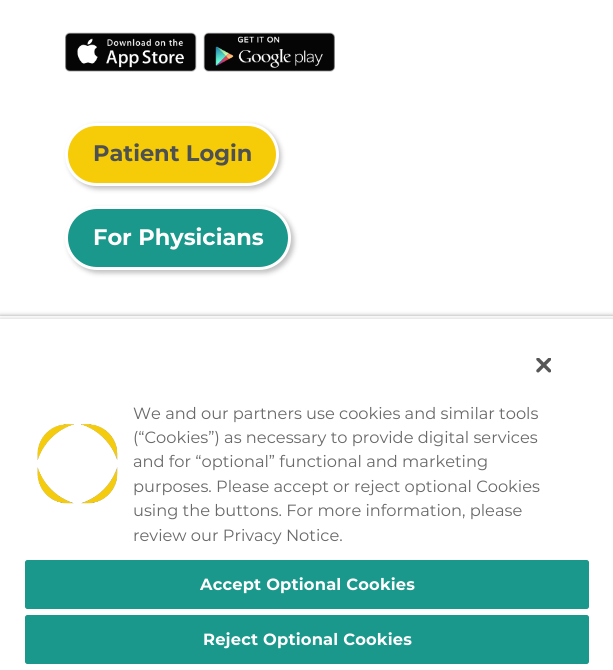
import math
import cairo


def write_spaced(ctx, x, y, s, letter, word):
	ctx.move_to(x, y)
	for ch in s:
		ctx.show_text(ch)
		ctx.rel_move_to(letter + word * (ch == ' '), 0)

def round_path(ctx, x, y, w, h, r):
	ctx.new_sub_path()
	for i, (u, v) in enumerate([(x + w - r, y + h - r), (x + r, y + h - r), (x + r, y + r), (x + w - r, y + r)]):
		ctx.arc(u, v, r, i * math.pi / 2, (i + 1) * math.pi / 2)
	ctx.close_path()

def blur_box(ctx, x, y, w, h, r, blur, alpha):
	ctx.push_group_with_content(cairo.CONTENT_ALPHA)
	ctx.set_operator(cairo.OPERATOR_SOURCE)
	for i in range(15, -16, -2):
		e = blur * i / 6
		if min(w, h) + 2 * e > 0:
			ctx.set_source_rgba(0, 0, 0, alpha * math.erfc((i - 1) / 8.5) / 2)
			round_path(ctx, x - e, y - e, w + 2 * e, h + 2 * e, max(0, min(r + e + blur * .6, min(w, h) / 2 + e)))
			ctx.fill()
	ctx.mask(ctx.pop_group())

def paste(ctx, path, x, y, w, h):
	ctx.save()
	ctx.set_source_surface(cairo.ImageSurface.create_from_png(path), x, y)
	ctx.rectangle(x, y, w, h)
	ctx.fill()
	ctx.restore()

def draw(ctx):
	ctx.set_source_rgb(1, 1, 1)
	ctx.paint()
	paste(ctx, 'media/1.png', 65, 32, 132, 40)
	paste(ctx, 'media/2.png', 203, 32, 132, 40)
	ctx.set_source_rgb(0, 0, 0)
	blur_box(ctx, 68, 125, 213, 64, 32, 2.5, 0.25)
	ctx.set_source_rgb(0.961, 0.796, 0.031)
	round_path(ctx, 66.5, 124.5, 211, 60, 30)
	ctx.fill_preserve()
	ctx.set_source_rgb(1, 1, 1)
	ctx.set_line_width(3)
	ctx.stroke()
	ctx.select_font_face('Montserrat', cairo.FONT_SLANT_NORMAL, cairo.FONT_WEIGHT_BOLD)
	ctx.set_font_size(22.5)
	ctx.set_source_rgb(0.302, 0.318, 0.318)
	ctx.move_to(93, 161)
	ctx.show_text('Patient Login')
	ctx.set_source_rgb(0, 0, 0)
	blur_box(ctx, 68, 209, 226, 64, 32, 2.5, 0.25)
	ctx.set_source_rgb(0.098, 0.596, 0.545)
	round_path(ctx, 66.5, 207.5, 223, 61, 30.5)
	ctx.fill_preserve()
	ctx.set_source_rgb(1, 1, 1)
	ctx.stroke()
	ctx.move_to(93, 245)
	ctx.show_text('For Physicians')
	ctx.save()
	ctx.set_fill_rule(cairo.FILL_RULE_EVEN_ODD)
	ctx.new_path()
	ctx.move_to(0, 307)
	ctx.line_to(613, 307)
	ctx.line_to(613, 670)
	ctx.line_to(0, 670)
	ctx.close_path()
	ctx.move_to(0, 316)
	ctx.line_to(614, 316)
	ctx.line_to(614, 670)
	ctx.line_to(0, 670)
	ctx.close_path()
	ctx.clip()
	ctx.set_source_rgb(0, 0, 0)
	blur_box(ctx, 0, 316, 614, 354, 0, 2.5, 0.35)
	ctx.restore()
	ctx.set_source_rgb(0, 0, 0)
	blur_box(ctx, 0, 319, 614, 351, 0, 2.5, 0.2)
	ctx.set_source_rgb(1, 1, 1)
	ctx.rectangle(0, 319, 613, 351)
	ctx.fill()
	paste(ctx, 'media/3.png', 536, 358, 15, 15)
	paste(ctx, 'media/4.png', 37, 424, 81, 80)
	ctx.select_font_face('Montserrat')
	ctx.set_font_size(16.25)
	ctx.set_source_rgb(0.412, 0.412, 0.412)
	for x, y, s in [
		(133, 419, 'We and our partners use cookies and similar tools'),
		(133, 443, '(“Cookies”) as necessary to provide digital services'),
		(133, 467, 'and for “optional” functional and marketing'),
		(133, 492, 'purposes. Please accept or reject optional Cookies'),
		(133, 516, 'using the buttons. For more information, please'),
		(133, 541, 'review our Privacy Notice.'),
	]:
		ctx.move_to(x, y)
		ctx.show_text(s)
	ctx.set_source_rgb(0.098, 0.596, 0.545)
	round_path(ctx, 25.5, 560.5, 563, 48, 2)
	ctx.fill_preserve()
	ctx.set_line_width(1)
	ctx.stroke()
	ctx.select_font_face('Montserrat', cairo.FONT_SLANT_NORMAL, cairo.FONT_WEIGHT_BOLD)
	ctx.set_source_rgb(1, 1, 1)
	write_spaced(ctx, 200, 590, 'Accept Optional Cookies', 0.2, 0)
	ctx.set_source_rgb(0.098, 0.596, 0.545)
	round_path(ctx, 25.5, 615.5, 563, 48, 2)
	ctx.fill_preserve()
	ctx.stroke()
	ctx.set_source_rgb(1, 1, 1)
	write_spaced(ctx, 203, 645, 'Reject Optional Cookies', 0.2, 0)


surface = cairo.ImageSurface(cairo.FORMAT_RGB24, 613, 670)
ctx = cairo.Context(surface)
options = cairo.FontOptions()
options.set_hint_metrics(cairo.HINT_METRICS_OFF)
options.set_hint_style(cairo.HINT_STYLE_NONE)
ctx.set_font_options(options)
ctx.set_miter_limit(4)
draw(ctx)
surface.write_to_png('image.png')
